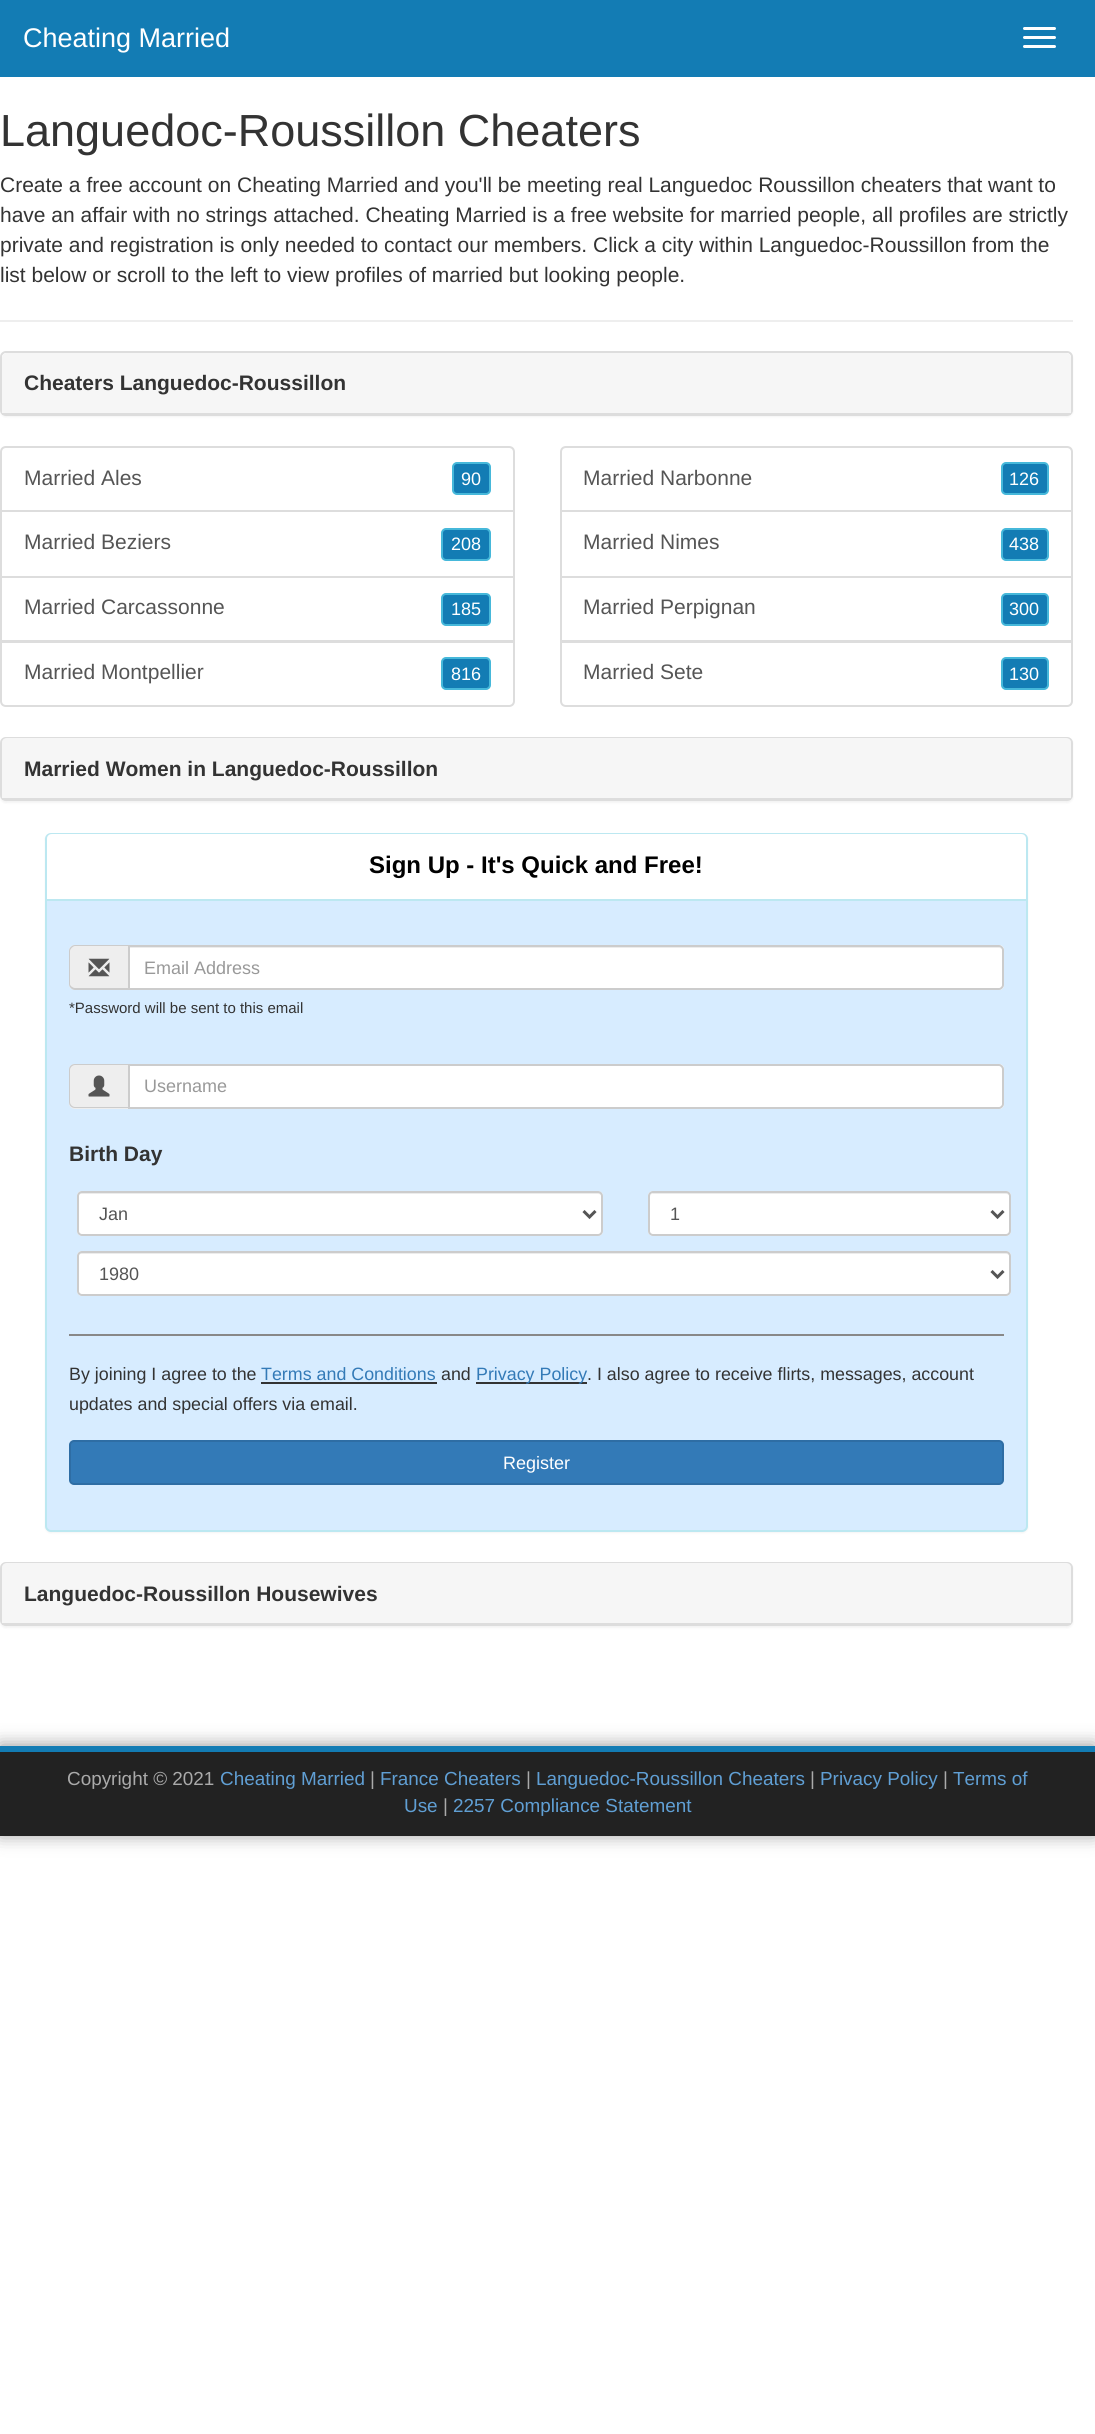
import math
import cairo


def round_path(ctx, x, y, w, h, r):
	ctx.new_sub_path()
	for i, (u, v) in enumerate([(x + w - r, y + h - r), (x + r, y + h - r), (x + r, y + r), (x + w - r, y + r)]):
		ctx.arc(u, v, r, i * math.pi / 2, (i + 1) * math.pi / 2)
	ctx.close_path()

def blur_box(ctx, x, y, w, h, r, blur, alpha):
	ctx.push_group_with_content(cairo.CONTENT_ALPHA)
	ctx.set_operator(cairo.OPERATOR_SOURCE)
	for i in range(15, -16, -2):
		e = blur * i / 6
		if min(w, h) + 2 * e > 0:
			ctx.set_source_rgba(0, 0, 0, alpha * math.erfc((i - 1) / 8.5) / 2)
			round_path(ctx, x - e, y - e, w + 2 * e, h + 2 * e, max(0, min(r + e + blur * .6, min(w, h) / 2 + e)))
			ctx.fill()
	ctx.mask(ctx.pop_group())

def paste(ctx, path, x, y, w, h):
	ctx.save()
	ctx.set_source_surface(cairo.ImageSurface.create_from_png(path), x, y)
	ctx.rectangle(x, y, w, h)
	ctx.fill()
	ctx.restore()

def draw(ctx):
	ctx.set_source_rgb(1, 1, 1)
	ctx.paint()
	ctx.set_source_rgb(0.075, 0.486, 0.706)
	ctx.rectangle(0, 0, 1095, 77)
	ctx.fill()
	ctx.select_font_face('Liberation Sans')
	ctx.set_font_size(27)
	ctx.set_source_rgb(1, 1, 1)
	ctx.move_to(23, 47)
	ctx.show_text('Cheating Married')
	round_path(ctx, 1023, 27, 33, 3, 1.5)
	ctx.fill()
	round_path(ctx, 1023, 36, 33, 3, 1.5)
	ctx.fill()
	round_path(ctx, 1023, 45, 33, 3, 1.5)
	ctx.fill()
	ctx.set_font_size(45)
	ctx.set_source_rgb(0.2, 0.2, 0.2)
	ctx.move_to(0, 146)
	ctx.show_text('Languedoc-Roussillon Cheaters')
	ctx.set_font_size(21)
	for x, y, s in [
		(0, 192, 'Create a free account on Cheating Married and you\'ll be meeting real Languedoc Roussillon cheaters that want to'),
		(0, 222, 'have an affair with no strings attached. Cheating Married is a free website for married people, all profiles are strictly'),
		(0, 252, 'private and registration is only needed to contact our members. Click a city within Languedoc-Roussillon from the'),
		(0, 282, 'list below or scroll to the left to view profiles of married but looking people.'),
	]:
		ctx.move_to(x, y)
		ctx.show_text(s)
	ctx.set_source_rgb(0.933, 0.933, 0.933)
	ctx.rectangle(0, 320, 1073, 2)
	ctx.fill()
	ctx.set_source_rgb(0, 0, 0)
	blur_box(ctx, 0, 353, 1073, 64, 6, 1, 0.05)
	ctx.set_source_rgb(1, 1, 1)
	round_path(ctx, 1, 352, 1071, 63, 5)
	ctx.fill_preserve()
	ctx.set_source_rgb(0.867, 0.867, 0.867)
	ctx.stroke()
	ctx.set_source_rgb(0.961, 0.961, 0.961)
	ctx.new_path()
	ctx.move_to(7, 353)
	ctx.line_to(1066, 353)
	ctx.curve_to(1069, 353, 1071, 355, 1071, 358)
	ctx.line_to(1071, 414)
	ctx.line_to(2, 414)
	ctx.line_to(2, 358)
	ctx.curve_to(2, 355, 4, 353, 7, 353)
	ctx.close_path()
	ctx.fill()
	ctx.set_source_rgb(0.867, 0.867, 0.867)
	ctx.rectangle(2, 413, 1069, 2)
	ctx.fill()
	ctx.select_font_face('Liberation Sans', cairo.FONT_SLANT_NORMAL, cairo.FONT_WEIGHT_BOLD)
	ctx.set_source_rgb(0.2, 0.2, 0.2)
	ctx.move_to(24, 390)
	ctx.show_text('Cheaters Languedoc-Roussillon')
	ctx.new_path()
	ctx.move_to(6, 447)
	ctx.line_to(509, 447)
	ctx.curve_to(512, 447, 514, 449, 514, 452)
	ctx.line_to(514, 511)
	ctx.line_to(1, 511)
	ctx.line_to(1, 452)
	ctx.curve_to(1, 449, 3, 447, 6, 447)
	ctx.close_path()
	ctx.set_source_rgb(0.867, 0.867, 0.867)
	ctx.stroke()
	ctx.select_font_face('Liberation Sans')
	ctx.set_source_rgb(0.333, 0.333, 0.333)
	ctx.move_to(24, 485)
	ctx.show_text('Married Ales')
	ctx.set_source_rgb(0.075, 0.486, 0.706)
	round_path(ctx, 453, 463, 37, 31, 4)
	ctx.fill_preserve()
	ctx.set_source_rgb(0.275, 0.722, 0.855)
	ctx.stroke()
	ctx.set_font_size(18)
	ctx.set_source_rgb(1, 1, 1)
	ctx.move_to(461, 485)
	ctx.show_text('90')
	ctx.rectangle(1, 511, 513, 66)
	ctx.set_source_rgb(0.867, 0.867, 0.867)
	ctx.stroke()
	ctx.set_font_size(21)
	ctx.set_source_rgb(0.333, 0.333, 0.333)
	ctx.move_to(24, 549)
	ctx.show_text('Married Beziers')
	ctx.set_source_rgb(0.075, 0.486, 0.706)
	round_path(ctx, 442, 529, 48, 31, 4)
	ctx.fill_preserve()
	ctx.set_source_rgb(0.275, 0.722, 0.855)
	ctx.stroke()
	ctx.set_font_size(18)
	ctx.set_source_rgb(1, 1, 1)
	ctx.move_to(451, 550)
	ctx.show_text('208')
	ctx.rectangle(1, 577, 513, 64)
	ctx.set_source_rgb(0.867, 0.867, 0.867)
	ctx.stroke()
	ctx.set_font_size(21)
	ctx.set_source_rgb(0.333, 0.333, 0.333)
	ctx.move_to(24, 614)
	ctx.show_text('Married Carcassonne')
	ctx.set_source_rgb(0.075, 0.486, 0.706)
	round_path(ctx, 442, 594, 48, 31, 4)
	ctx.fill_preserve()
	ctx.set_source_rgb(0.275, 0.722, 0.855)
	ctx.stroke()
	ctx.set_font_size(18)
	ctx.set_source_rgb(1, 1, 1)
	ctx.move_to(451, 615)
	ctx.show_text('185')
	ctx.new_path()
	ctx.move_to(1, 642)
	ctx.line_to(514, 642)
	ctx.line_to(514, 701)
	ctx.curve_to(514, 704, 512, 706, 509, 706)
	ctx.line_to(6, 706)
	ctx.curve_to(3, 706, 1, 704, 1, 701)
	ctx.close_path()
	ctx.fill_preserve()
	ctx.set_source_rgb(0.867, 0.867, 0.867)
	ctx.stroke()
	ctx.set_font_size(21)
	ctx.set_source_rgb(0.333, 0.333, 0.333)
	ctx.move_to(24, 679)
	ctx.show_text('Married Montpellier')
	ctx.set_source_rgb(0.075, 0.486, 0.706)
	round_path(ctx, 442, 658, 48, 31, 4)
	ctx.fill_preserve()
	ctx.set_source_rgb(0.275, 0.722, 0.855)
	ctx.stroke()
	ctx.set_font_size(18)
	ctx.set_source_rgb(1, 1, 1)
	ctx.move_to(451, 680)
	ctx.show_text('816')
	ctx.new_path()
	ctx.move_to(566, 447)
	ctx.line_to(1067, 447)
	ctx.curve_to(1070, 447, 1072, 449, 1072, 452)
	ctx.line_to(1072, 511)
	ctx.line_to(561, 511)
	ctx.line_to(561, 452)
	ctx.curve_to(561, 449, 563, 447, 566, 447)
	ctx.close_path()
	ctx.set_source_rgb(0.867, 0.867, 0.867)
	ctx.stroke()
	ctx.set_font_size(21)
	ctx.set_source_rgb(0.333, 0.333, 0.333)
	ctx.move_to(583, 485)
	ctx.show_text('Married Narbonne')
	ctx.set_source_rgb(0.075, 0.486, 0.706)
	round_path(ctx, 1002, 463, 46, 31, 4)
	ctx.fill_preserve()
	ctx.set_source_rgb(0.275, 0.722, 0.855)
	ctx.stroke()
	ctx.set_font_size(18)
	ctx.set_source_rgb(1, 1, 1)
	ctx.move_to(1009, 485)
	ctx.show_text('126')
	ctx.rectangle(561, 511, 511, 66)
	ctx.set_source_rgb(0.867, 0.867, 0.867)
	ctx.stroke()
	ctx.set_font_size(21)
	ctx.set_source_rgb(0.333, 0.333, 0.333)
	ctx.move_to(583, 549)
	ctx.show_text('Married Nimes')
	ctx.set_source_rgb(0.075, 0.486, 0.706)
	round_path(ctx, 1002, 529, 46, 31, 4)
	ctx.fill_preserve()
	ctx.set_source_rgb(0.275, 0.722, 0.855)
	ctx.stroke()
	ctx.set_font_size(18)
	ctx.set_source_rgb(1, 1, 1)
	ctx.move_to(1009, 550)
	ctx.show_text('438')
	ctx.rectangle(561, 577, 511, 64)
	ctx.set_source_rgb(0.867, 0.867, 0.867)
	ctx.stroke()
	ctx.set_font_size(21)
	ctx.set_source_rgb(0.333, 0.333, 0.333)
	ctx.move_to(583, 614)
	ctx.show_text('Married Perpignan')
	ctx.set_source_rgb(0.075, 0.486, 0.706)
	round_path(ctx, 1002, 594, 46, 31, 4)
	ctx.fill_preserve()
	ctx.set_source_rgb(0.275, 0.722, 0.855)
	ctx.stroke()
	ctx.set_font_size(18)
	ctx.set_source_rgb(1, 1, 1)
	ctx.move_to(1009, 615)
	ctx.show_text('300')
	ctx.new_path()
	ctx.move_to(561, 642)
	ctx.line_to(1072, 642)
	ctx.line_to(1072, 701)
	ctx.curve_to(1072, 704, 1070, 706, 1067, 706)
	ctx.line_to(566, 706)
	ctx.curve_to(563, 706, 561, 704, 561, 701)
	ctx.close_path()
	ctx.fill_preserve()
	ctx.set_source_rgb(0.867, 0.867, 0.867)
	ctx.stroke()
	ctx.set_font_size(21)
	ctx.set_source_rgb(0.333, 0.333, 0.333)
	ctx.move_to(583, 679)
	ctx.show_text('Married Sete')
	ctx.set_source_rgb(0.075, 0.486, 0.706)
	round_path(ctx, 1002, 658, 46, 31, 4)
	ctx.fill_preserve()
	ctx.set_source_rgb(0.275, 0.722, 0.855)
	ctx.stroke()
	ctx.set_font_size(18)
	ctx.set_source_rgb(1, 1, 1)
	ctx.move_to(1009, 680)
	ctx.show_text('130')
	ctx.set_source_rgb(0, 0, 0)
	blur_box(ctx, 0, 738, 1073, 65, 6, 1, 0.05)
	round_path(ctx, 1, 738, 1071, 62, 5)
	ctx.set_source_rgb(0.867, 0.867, 0.867)
	ctx.stroke()
	ctx.set_source_rgb(0.961, 0.961, 0.961)
	ctx.new_path()
	ctx.move_to(7, 738)
	ctx.line_to(1066, 738)
	ctx.curve_to(1069, 738, 1071, 740, 1071, 743)
	ctx.line_to(1071, 800)
	ctx.line_to(2, 800)
	ctx.line_to(2, 743)
	ctx.curve_to(2, 740, 4, 738, 7, 738)
	ctx.close_path()
	ctx.fill()
	ctx.set_source_rgb(0.867, 0.867, 0.867)
	ctx.rectangle(2, 798, 1069, 2)
	ctx.fill()
	ctx.select_font_face('Liberation Sans', cairo.FONT_SLANT_NORMAL, cairo.FONT_WEIGHT_BOLD)
	ctx.set_font_size(21)
	ctx.set_source_rgb(0.2, 0.2, 0.2)
	ctx.move_to(24, 776)
	ctx.show_text('Married Women in Languedoc-Roussillon')
	ctx.set_source_rgb(0, 0, 0)
	blur_box(ctx, 45, 834, 983, 699, 6, 1, 0.05)
	ctx.set_source_rgb(0.843, 0.922, 1)
	round_path(ctx, 46, 834, 981, 697, 5)
	ctx.fill_preserve()
	ctx.set_source_rgb(0.737, 0.91, 0.945)
	ctx.stroke()
	ctx.set_source_rgb(1, 1, 1)
	ctx.new_path()
	ctx.move_to(52, 834)
	ctx.line_to(1021, 834)
	ctx.curve_to(1024, 834, 1026, 836, 1026, 839)
	ctx.line_to(1026, 900)
	ctx.line_to(47, 900)
	ctx.line_to(47, 839)
	ctx.curve_to(47, 836, 49, 834, 52, 834)
	ctx.close_path()
	ctx.fill()
	ctx.set_source_rgb(0.737, 0.91, 0.945)
	ctx.rectangle(47, 899, 979, 2)
	ctx.fill()
	ctx.set_font_size(24)
	ctx.set_source_rgb(0, 0, 0)
	ctx.move_to(369, 873)
	ctx.show_text('Sign Up - It\'s Quick and Free!')
	ctx.set_source_rgb(0.933, 0.933, 0.933)
	ctx.new_path()
	ctx.move_to(75, 945)
	ctx.line_to(128, 945)
	ctx.line_to(128, 990)
	ctx.line_to(75, 990)
	ctx.curve_to(71.5, 990, 69, 987.5, 69, 984)
	ctx.line_to(69, 951)
	ctx.curve_to(69, 947.5, 71.5, 945, 75, 945)
	ctx.close_path()
	ctx.fill()
	ctx.set_source_rgb(0.8, 0.8, 0.8)
	ctx.set_fill_rule(cairo.FILL_RULE_EVEN_ODD)
	ctx.new_path()
	ctx.move_to(75, 945)
	ctx.line_to(128, 945)
	ctx.line_to(128, 990)
	ctx.line_to(75, 990)
	ctx.curve_to(72, 990, 69, 987, 69, 984)
	ctx.line_to(69, 951)
	ctx.curve_to(69, 948, 72, 945, 75, 945)
	ctx.close_path()
	ctx.move_to(75, 946)
	ctx.line_to(128, 946)
	ctx.line_to(128, 988)
	ctx.line_to(75, 988)
	ctx.curve_to(73, 988, 70, 986, 70, 984)
	ctx.line_to(70, 951)
	ctx.curve_to(70, 949, 73, 946, 75, 946)
	ctx.close_path()
	ctx.fill()
	paste(ctx, 'media/1.png', 88, 958, 22, 19)
	ctx.set_source_rgb(1, 1, 1)
	ctx.new_path()
	ctx.move_to(128, 945)
	ctx.line_to(999, 945)
	ctx.curve_to(1002, 945, 1004, 947, 1004, 950)
	ctx.line_to(1004, 985)
	ctx.curve_to(1004, 988, 1002, 990, 999, 990)
	ctx.line_to(128, 990)
	ctx.close_path()
	ctx.fill()
	ctx.set_source_rgb(0.925, 0.925, 0.925)
	ctx.set_fill_rule(cairo.FILL_RULE_WINDING)
	ctx.new_path()
	ctx.move_to(129, 948)
	ctx.line_to(999, 948)
	ctx.curve_to(1001, 948, 1002, 949, 1002, 951)
	ctx.curve_to(1002, 949, 1001, 947, 999, 947)
	ctx.line_to(129, 947)
	ctx.close_path()
	ctx.fill()
	ctx.new_path()
	ctx.move_to(129, 946)
	ctx.line_to(999, 946)
	ctx.curve_to(1001, 946, 1003, 948, 1003, 950)
	ctx.line_to(1003, 985)
	ctx.curve_to(1003, 987, 1001, 989, 999, 989)
	ctx.line_to(129, 989)
	ctx.close_path()
	ctx.set_source_rgb(0.8, 0.8, 0.8)
	ctx.stroke()
	ctx.select_font_face('Liberation Sans')
	ctx.set_font_size(18)
	ctx.set_source_rgb(0.6, 0.6, 0.6)
	ctx.move_to(144, 974)
	ctx.show_text('Email Address')
	ctx.set_font_size(15)
	ctx.set_source_rgb(0.2, 0.2, 0.2)
	ctx.move_to(69, 1013)
	ctx.show_text('*Password will be sent to this email')
	ctx.set_source_rgb(0.933, 0.933, 0.933)
	ctx.new_path()
	ctx.move_to(75, 1064)
	ctx.line_to(128, 1064)
	ctx.line_to(128, 1109)
	ctx.line_to(75, 1109)
	ctx.curve_to(71.5, 1109, 69, 1106.5, 69, 1103)
	ctx.line_to(69, 1070)
	ctx.curve_to(69, 1066.5, 71.5, 1064, 75, 1064)
	ctx.close_path()
	ctx.fill()
	ctx.set_source_rgb(0.8, 0.8, 0.8)
	ctx.set_fill_rule(cairo.FILL_RULE_EVEN_ODD)
	ctx.new_path()
	ctx.move_to(75, 1064)
	ctx.line_to(128, 1064)
	ctx.line_to(128, 1108)
	ctx.line_to(75, 1108)
	ctx.curve_to(72, 1108, 69, 1106, 69, 1102)
	ctx.line_to(69, 1070)
	ctx.curve_to(69, 1066, 72, 1064, 75, 1064)
	ctx.close_path()
	ctx.move_to(75, 1065)
	ctx.line_to(128, 1065)
	ctx.line_to(128, 1107)
	ctx.line_to(75, 1107)
	ctx.curve_to(73, 1107, 70, 1105, 70, 1102)
	ctx.line_to(70, 1070)
	ctx.curve_to(70, 1067, 73, 1065, 75, 1065)
	ctx.close_path()
	ctx.fill()
	paste(ctx, 'media/2.png', 88, 1075, 22, 22)
	ctx.set_source_rgb(1, 1, 1)
	ctx.new_path()
	ctx.move_to(128, 1064)
	ctx.line_to(999, 1064)
	ctx.curve_to(1002, 1064, 1004, 1066, 1004, 1069)
	ctx.line_to(1004, 1104)
	ctx.curve_to(1004, 1107, 1002, 1109, 999, 1109)
	ctx.line_to(128, 1109)
	ctx.close_path()
	ctx.fill()
	ctx.set_source_rgb(0.925, 0.925, 0.925)
	ctx.set_fill_rule(cairo.FILL_RULE_WINDING)
	ctx.new_path()
	ctx.move_to(129, 1066)
	ctx.line_to(999, 1066)
	ctx.curve_to(1001, 1066, 1002, 1068, 1002, 1070)
	ctx.line_to(1002, 1068)
	ctx.curve_to(1002, 1066, 1001, 1065, 999, 1065)
	ctx.line_to(129, 1065)
	ctx.close_path()
	ctx.fill()
	ctx.new_path()
	ctx.move_to(129, 1065)
	ctx.line_to(999, 1065)
	ctx.curve_to(1001, 1065, 1003, 1067, 1003, 1069)
	ctx.line_to(1003, 1104)
	ctx.curve_to(1003, 1106, 1001, 1108, 999, 1108)
	ctx.line_to(129, 1108)
	ctx.close_path()
	ctx.set_source_rgb(0.8, 0.8, 0.8)
	ctx.stroke()
	ctx.set_font_size(18)
	ctx.set_source_rgb(0.6, 0.6, 0.6)
	ctx.move_to(144, 1092)
	ctx.show_text('Username')
	ctx.select_font_face('Liberation Sans', cairo.FONT_SLANT_NORMAL, cairo.FONT_WEIGHT_BOLD)
	ctx.set_font_size(21)
	ctx.set_source_rgb(0.2, 0.2, 0.2)
	ctx.move_to(69, 1161)
	ctx.show_text('Birth Day')
	ctx.set_source_rgb(1, 1, 1)
	round_path(ctx, 77, 1191, 526, 45, 5)
	ctx.fill()
	ctx.set_source_rgb(0.925, 0.925, 0.925)
	ctx.new_path()
	ctx.move_to(81, 1194)
	ctx.line_to(598, 1194)
	ctx.curve_to(600, 1194, 602, 1195, 602, 1197)
	ctx.line_to(602, 1195)
	ctx.line_to(600, 1193)
	ctx.line_to(81, 1193)
	ctx.curve_to(79, 1193, 78, 1195, 78, 1197)
	ctx.curve_to(78, 1195, 79, 1194, 81, 1194)
	ctx.close_path()
	ctx.fill()
	round_path(ctx, 78, 1192, 524, 43, 4)
	ctx.set_source_rgb(0.8, 0.8, 0.8)
	ctx.stroke()
	ctx.new_path()
	ctx.move_to(583.5, 1211)
	ctx.line_to(589.5, 1217)
	ctx.line_to(595.5, 1211)
	ctx.set_source_rgb(0.333, 0.333, 0.333)
	ctx.set_line_width(3)
	ctx.stroke()
	ctx.select_font_face('Liberation Sans')
	ctx.set_font_size(18)
	ctx.move_to(99, 1220)
	ctx.show_text('Jan')
	ctx.set_source_rgb(1, 1, 1)
	round_path(ctx, 648, 1191, 363, 45, 5)
	ctx.fill()
	ctx.set_source_rgb(0.925, 0.925, 0.925)
	ctx.new_path()
	ctx.move_to(652, 1194)
	ctx.line_to(1006, 1194)
	ctx.curve_to(1008, 1194, 1010, 1195, 1010, 1197)
	ctx.curve_to(1010, 1195, 1009, 1193, 1007, 1193)
	ctx.line_to(653, 1193)
	ctx.line_to(651, 1194)
	ctx.line_to(650, 1197)
	ctx.curve_to(650, 1195, 651, 1194, 652, 1194)
	ctx.close_path()
	ctx.fill()
	round_path(ctx, 649, 1192, 361, 43, 4)
	ctx.set_source_rgb(0.8, 0.8, 0.8)
	ctx.set_line_width(2)
	ctx.stroke()
	ctx.new_path()
	ctx.move_to(991.5, 1211)
	ctx.line_to(997.5, 1217)
	ctx.line_to(1003.5, 1211)
	ctx.set_source_rgb(0.333, 0.333, 0.333)
	ctx.set_line_width(3)
	ctx.stroke()
	ctx.move_to(670, 1220)
	ctx.show_text('1')
	ctx.set_source_rgb(1, 1, 1)
	round_path(ctx, 77, 1251, 934, 45, 5)
	ctx.fill()
	ctx.set_source_rgb(0.925, 0.925, 0.925)
	ctx.new_path()
	ctx.move_to(81, 1254)
	ctx.line_to(1006, 1254)
	ctx.curve_to(1008, 1254, 1010, 1255, 1010, 1257)
	ctx.curve_to(1010, 1255, 1009, 1253, 1007, 1253)
	ctx.line_to(81, 1253)
	ctx.curve_to(79, 1253, 78, 1255, 78, 1257)
	ctx.curve_to(78, 1255, 79, 1254, 81, 1254)
	ctx.close_path()
	ctx.fill()
	round_path(ctx, 78, 1252, 932, 43, 4)
	ctx.set_source_rgb(0.8, 0.8, 0.8)
	ctx.set_line_width(2)
	ctx.stroke()
	ctx.new_path()
	ctx.move_to(991.5, 1271)
	ctx.line_to(997.5, 1277)
	ctx.line_to(1003.5, 1271)
	ctx.set_source_rgb(0.333, 0.333, 0.333)
	ctx.set_line_width(3)
	ctx.stroke()
	ctx.move_to(99, 1280)
	ctx.show_text('1980')
	ctx.set_source_rgb(0.533, 0.533, 0.533)
	ctx.rectangle(69, 1334, 935, 2)
	ctx.fill()
	ctx.set_font_size(17.85)
	ctx.set_source_rgb(0.2, 0.2, 0.2)
	ctx.move_to(69, 1380)
	ctx.show_text('By joining I agree to the')
	ctx.set_source_rgb(0.2, 0.478, 0.718)
	ctx.move_to(261, 1380)
	ctx.show_text('Terms and Conditions')
	ctx.set_source_rgb(0.2, 0.2, 0.2)
	ctx.rectangle(261, 1382, 176, 2)
	ctx.fill()
	ctx.move_to(441, 1380)
	ctx.show_text('and')
	ctx.rectangle(476, 1382, 111, 2)
	ctx.fill()
	ctx.set_source_rgb(0.2, 0.478, 0.718)
	ctx.move_to(476, 1380)
	ctx.show_text('Privacy Policy')
	ctx.set_source_rgb(0.2, 0.2, 0.2)
	ctx.move_to(587, 1380)
	ctx.show_text('. I also agree to receive flirts, messages, account')
	ctx.move_to(69, 1410)
	ctx.show_text('updates and special offers via email.')
	ctx.set_source_rgb(0.2, 0.478, 0.718)
	round_path(ctx, 70, 1441, 933, 43, 4)
	ctx.fill_preserve()
	ctx.set_source_rgb(0.18, 0.427, 0.643)
	ctx.set_line_width(2)
	ctx.stroke()
	ctx.set_font_size(18)
	ctx.set_source_rgb(1, 1, 1)
	ctx.move_to(503, 1469)
	ctx.show_text('Register')
	ctx.set_source_rgb(0, 0, 0)
	blur_box(ctx, 0, 1563, 1073, 65, 6, 1, 0.05)
	round_path(ctx, 1, 1563, 1071, 62, 5)
	ctx.set_source_rgb(0.867, 0.867, 0.867)
	ctx.stroke()
	ctx.set_source_rgb(0.961, 0.961, 0.961)
	ctx.new_path()
	ctx.move_to(7, 1563)
	ctx.line_to(1066, 1563)
	ctx.curve_to(1069, 1563, 1071, 1565, 1071, 1568)
	ctx.line_to(1071, 1625)
	ctx.line_to(2, 1625)
	ctx.line_to(2, 1568)
	ctx.curve_to(2, 1565, 4, 1563, 7, 1563)
	ctx.close_path()
	ctx.fill()
	ctx.set_source_rgb(0.867, 0.867, 0.867)
	ctx.rectangle(2, 1623, 1069, 2)
	ctx.fill()
	ctx.select_font_face('Liberation Sans', cairo.FONT_SLANT_NORMAL, cairo.FONT_WEIGHT_BOLD)
	ctx.set_font_size(21)
	ctx.set_source_rgb(0.2, 0.2, 0.2)
	ctx.move_to(24, 1601)
	ctx.show_text('Languedoc-Roussillon Housewives')
	ctx.set_source_rgb(0, 0, 0)
	blur_box(ctx, 0, 1745, 1095, 90, 0, 9, 0.4)
	ctx.set_source_rgb(0.133, 0.133, 0.133)
	ctx.rectangle(0, 1752, 1095, 84)
	ctx.fill()
	ctx.set_source_rgb(0.075, 0.486, 0.706)
	ctx.rectangle(0, 1746, 1095, 6)
	ctx.fill()
	ctx.select_font_face('Liberation Sans')
	ctx.set_font_size(18.9)
	ctx.set_source_rgb(0.667, 0.667, 0.667)
	ctx.move_to(67, 1785)
	ctx.show_text('Copyright © 2021')
	ctx.set_source_rgb(0.376, 0.624, 0.831)
	ctx.move_to(220, 1785)
	ctx.show_text('Cheating Married')
	ctx.set_source_rgb(0.667, 0.667, 0.667)
	ctx.move_to(370, 1785)
	ctx.show_text('|')
	ctx.set_source_rgb(0.376, 0.624, 0.831)
	ctx.move_to(380, 1785)
	ctx.show_text('France Cheaters')
	ctx.set_source_rgb(0.667, 0.667, 0.667)
	ctx.move_to(526, 1785)
	ctx.show_text('|')
	ctx.set_source_rgb(0.376, 0.624, 0.831)
	ctx.move_to(536, 1785)
	ctx.show_text('Languedoc-Roussillon Cheaters')
	ctx.set_source_rgb(0.667, 0.667, 0.667)
	ctx.move_to(810, 1785)
	ctx.show_text('|')
	ctx.set_source_rgb(0.376, 0.624, 0.831)
	ctx.move_to(820, 1785)
	ctx.show_text('Privacy Policy')
	ctx.set_source_rgb(0.667, 0.667, 0.667)
	ctx.move_to(943, 1785)
	ctx.show_text('|')
	ctx.set_source_rgb(0.376, 0.624, 0.831)
	ctx.move_to(953, 1785)
	ctx.show_text('Terms of')
	ctx.move_to(404, 1812)
	ctx.show_text('Use')
	ctx.set_source_rgb(0.667, 0.667, 0.667)
	ctx.move_to(443, 1812)
	ctx.show_text('|')
	ctx.set_source_rgb(0.376, 0.624, 0.831)
	ctx.move_to(453, 1812)
	ctx.show_text('2257 Compliance Statement')


surface = cairo.ImageSurface(cairo.FORMAT_RGB24, 1095, 2434)
ctx = cairo.Context(surface)
options = cairo.FontOptions()
options.set_hint_metrics(cairo.HINT_METRICS_OFF)
options.set_hint_style(cairo.HINT_STYLE_NONE)
ctx.set_font_options(options)
ctx.set_miter_limit(4)
draw(ctx)
surface.write_to_png('image.png')
